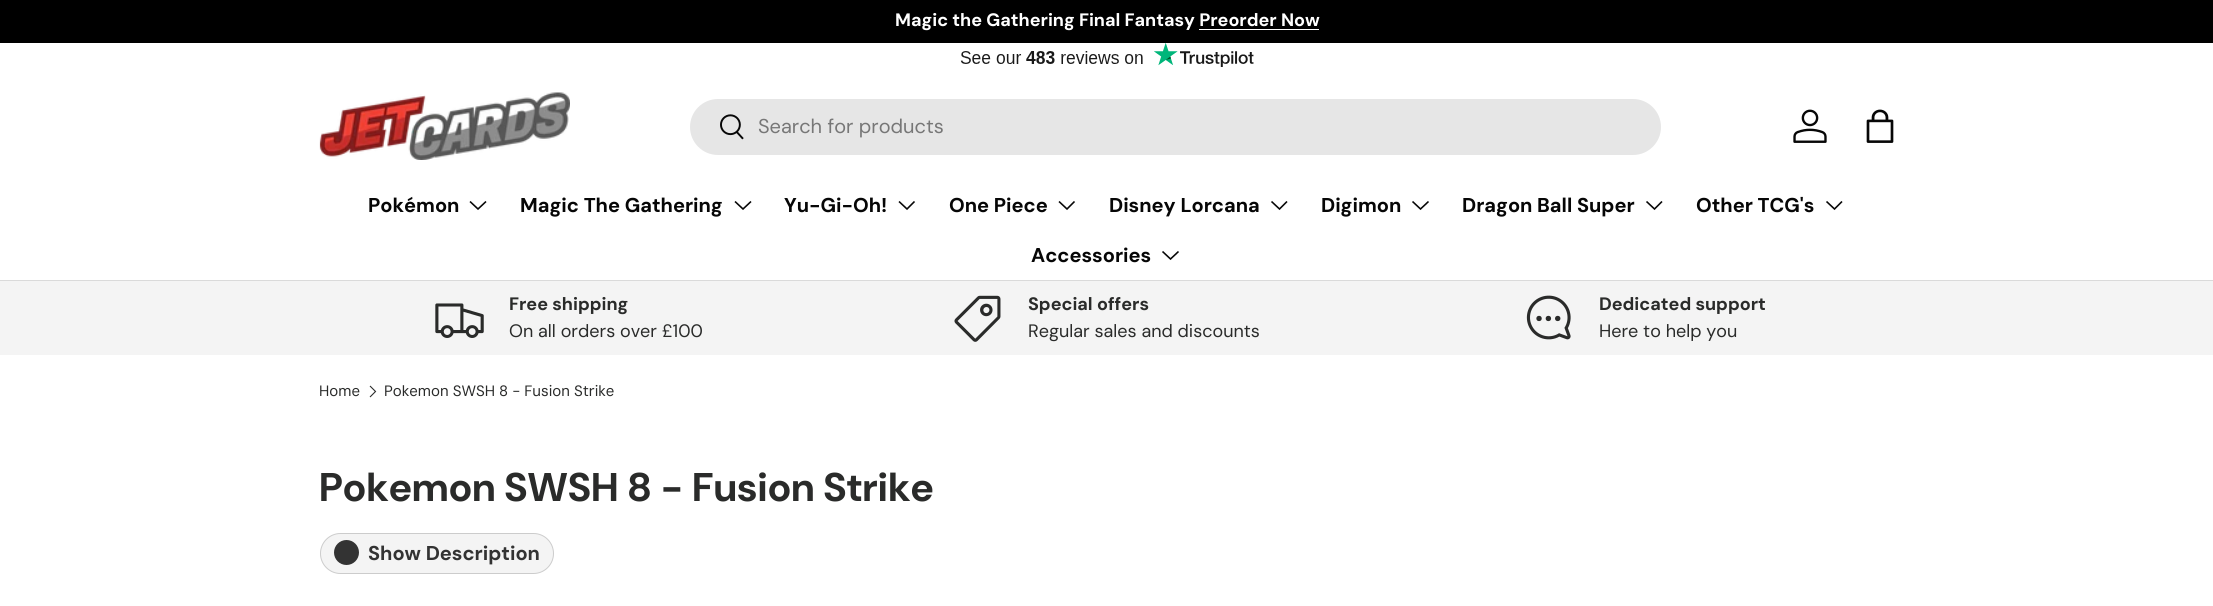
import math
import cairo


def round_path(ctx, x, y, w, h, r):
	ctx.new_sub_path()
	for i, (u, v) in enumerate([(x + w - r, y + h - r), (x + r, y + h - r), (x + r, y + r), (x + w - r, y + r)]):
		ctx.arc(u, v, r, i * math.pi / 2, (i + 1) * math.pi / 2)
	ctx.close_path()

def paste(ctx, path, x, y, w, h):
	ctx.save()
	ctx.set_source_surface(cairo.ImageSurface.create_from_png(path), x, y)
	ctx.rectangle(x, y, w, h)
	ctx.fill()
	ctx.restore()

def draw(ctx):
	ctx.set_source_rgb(1, 1, 1)
	ctx.paint()
	ctx.set_source_rgb(0, 0, 0)
	ctx.rectangle(0, 0, 2213, 43)
	ctx.fill()
	ctx.select_font_face('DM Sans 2', cairo.FONT_SLANT_NORMAL, cairo.FONT_WEIGHT_BOLD)
	ctx.set_font_size(18)
	ctx.set_source_rgb(1, 1, 1)
	ctx.move_to(895, 26)
	ctx.show_text('Magic the Gathering Final Fantasy Preorder Now')
	ctx.rectangle(1199, 29, 120, 1)
	ctx.fill()
	paste(ctx, 'media/1.png', 960, 43, 294, 24)
	ctx.set_source_rgb(0.855, 0.855, 0.855)
	ctx.rectangle(0, 280, 2213, 1)
	ctx.fill()
	paste(ctx, 'media/2.png', 319, 92, 251, 68)
	ctx.set_source_rgb(0.902, 0.902, 0.902)
	round_path(ctx, 690, 99, 971, 56, 28)
	ctx.fill()
	paste(ctx, 'media/3.png', 720, 114, 24, 26)
	ctx.select_font_face('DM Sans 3')
	ctx.set_font_size(20)
	ctx.set_source_rgb(0.467, 0.467, 0.467)
	ctx.move_to(758, 133)
	ctx.show_text('Search for products')
	paste(ctx, 'media/4.png', 1793, 109, 34, 34)
	paste(ctx, 'media/5.png', 1866, 109, 28, 34)
	ctx.select_font_face('DM Sans 3', cairo.FONT_SLANT_NORMAL, cairo.FONT_WEIGHT_BOLD)
	ctx.set_source_rgb(0.027, 0.027, 0.027)
	ctx.move_to(368, 212)
	ctx.show_text('Pokémon')
	ctx.new_path()
	ctx.move_to(486, 201.5)
	ctx.line_to(478, 209)
	ctx.line_to(470, 201.5)
	ctx.set_line_width(1.6)
	ctx.stroke()
	ctx.move_to(520, 212)
	ctx.show_text('Magic The Gathering')
	ctx.new_path()
	ctx.move_to(751, 201.5)
	ctx.line_to(743, 209)
	ctx.line_to(735, 201.5)
	ctx.stroke()
	ctx.move_to(784, 212)
	ctx.show_text('Yu-Gi-Oh!')
	ctx.new_path()
	ctx.move_to(914.5, 201.5)
	ctx.line_to(907, 209)
	ctx.line_to(899, 201.5)
	ctx.stroke()
	ctx.move_to(949, 212)
	ctx.show_text('One Piece')
	ctx.new_path()
	ctx.move_to(1074.5, 201.5)
	ctx.line_to(1067, 209)
	ctx.line_to(1059, 201.5)
	ctx.stroke()
	ctx.move_to(1109, 212)
	ctx.show_text('Disney Lorcana')
	ctx.new_path()
	ctx.move_to(1287, 201.5)
	ctx.line_to(1279.5, 209)
	ctx.line_to(1271.5, 201.5)
	ctx.stroke()
	ctx.move_to(1321, 212)
	ctx.show_text('Digimon')
	ctx.new_path()
	ctx.move_to(1428.5, 201.5)
	ctx.line_to(1420.5, 209)
	ctx.line_to(1412.5, 201.5)
	ctx.stroke()
	ctx.move_to(1462, 212)
	ctx.show_text('Dragon Ball Super')
	ctx.new_path()
	ctx.move_to(1662, 201.5)
	ctx.line_to(1654.5, 209)
	ctx.line_to(1646.5, 201.5)
	ctx.stroke()
	ctx.move_to(1696, 212)
	ctx.show_text('Other TCG\'s')
	ctx.new_path()
	ctx.move_to(1842, 201.5)
	ctx.line_to(1834.5, 209)
	ctx.line_to(1826.5, 201.5)
	ctx.stroke()
	ctx.move_to(1031, 262)
	ctx.show_text('Accessories')
	ctx.new_path()
	ctx.move_to(1178.5, 251.5)
	ctx.line_to(1170.5, 259)
	ctx.line_to(1162.5, 251.5)
	ctx.stroke()
	ctx.set_source_rgb(0.957, 0.957, 0.957)
	ctx.rectangle(0, 281, 2213, 74)
	ctx.fill()
	paste(ctx, 'media/6.png', 435, 303, 49, 35)
	ctx.select_font_face('DM Sans 2', cairo.FONT_SLANT_NORMAL, cairo.FONT_WEIGHT_BOLD)
	ctx.set_font_size(18)
	ctx.set_source_rgb(0.165, 0.169, 0.165)
	ctx.move_to(509, 310)
	ctx.show_text('Free shipping')
	ctx.select_font_face('DM Sans 2')
	ctx.move_to(509, 337)
	ctx.show_text('On all orders over £100')
	paste(ctx, 'media/7.png', 954, 295, 47, 47)
	ctx.select_font_face('DM Sans 2', cairo.FONT_SLANT_NORMAL, cairo.FONT_WEIGHT_BOLD)
	ctx.move_to(1028, 310)
	ctx.show_text('Special offers')
	ctx.select_font_face('DM Sans 2')
	ctx.move_to(1028, 337)
	ctx.show_text('Regular sales and discounts')
	paste(ctx, 'media/8.png', 1526, 295, 45, 45)
	ctx.select_font_face('DM Sans 2', cairo.FONT_SLANT_NORMAL, cairo.FONT_WEIGHT_BOLD)
	ctx.move_to(1599, 310)
	ctx.show_text('Dedicated support')
	ctx.select_font_face('DM Sans 2')
	ctx.move_to(1599, 337)
	ctx.show_text('Here to help you')
	ctx.select_font_face('DM Sans')
	ctx.set_font_size(15)
	ctx.move_to(319, 396)
	ctx.show_text('Home')
	ctx.new_path()
	ctx.move_to(370, 386)
	ctx.line_to(375.5, 391.5)
	ctx.line_to(370, 397)
	ctx.set_line_width(1.1)
	ctx.stroke()
	ctx.move_to(384, 396)
	ctx.show_text('Pokemon SWSH 8 - Fusion Strike')
	ctx.select_font_face('DM Sans', cairo.FONT_SLANT_NORMAL, cairo.FONT_WEIGHT_BOLD)
	ctx.set_font_size(40)
	ctx.move_to(319, 501)
	ctx.show_text('Pokemon SWSH 8 - Fusion Strike')
	ctx.set_source_rgb(0.957, 0.957, 0.957)
	round_path(ctx, 320.5, 533.5, 233, 40, 20)
	ctx.fill_preserve()
	ctx.set_source_rgb(0.8, 0.8, 0.8)
	ctx.set_line_width(1)
	ctx.stroke()
	ctx.set_source_rgb(0.2, 0.2, 0.2)
	ctx.arc(346.5, 552.5, 12.5, 0, 2 * math.pi)
	ctx.fill()
	ctx.select_font_face('DM Sans 3', cairo.FONT_SLANT_NORMAL, cairo.FONT_WEIGHT_BOLD)
	ctx.set_font_size(20)
	ctx.move_to(368, 560)
	ctx.show_text('Show Description')


surface = cairo.ImageSurface(cairo.FORMAT_RGB24, 2213, 606)
ctx = cairo.Context(surface)
options = cairo.FontOptions()
options.set_hint_metrics(cairo.HINT_METRICS_OFF)
options.set_hint_style(cairo.HINT_STYLE_NONE)
ctx.set_font_options(options)
ctx.set_miter_limit(4)
draw(ctx)
surface.write_to_png('image.png')
